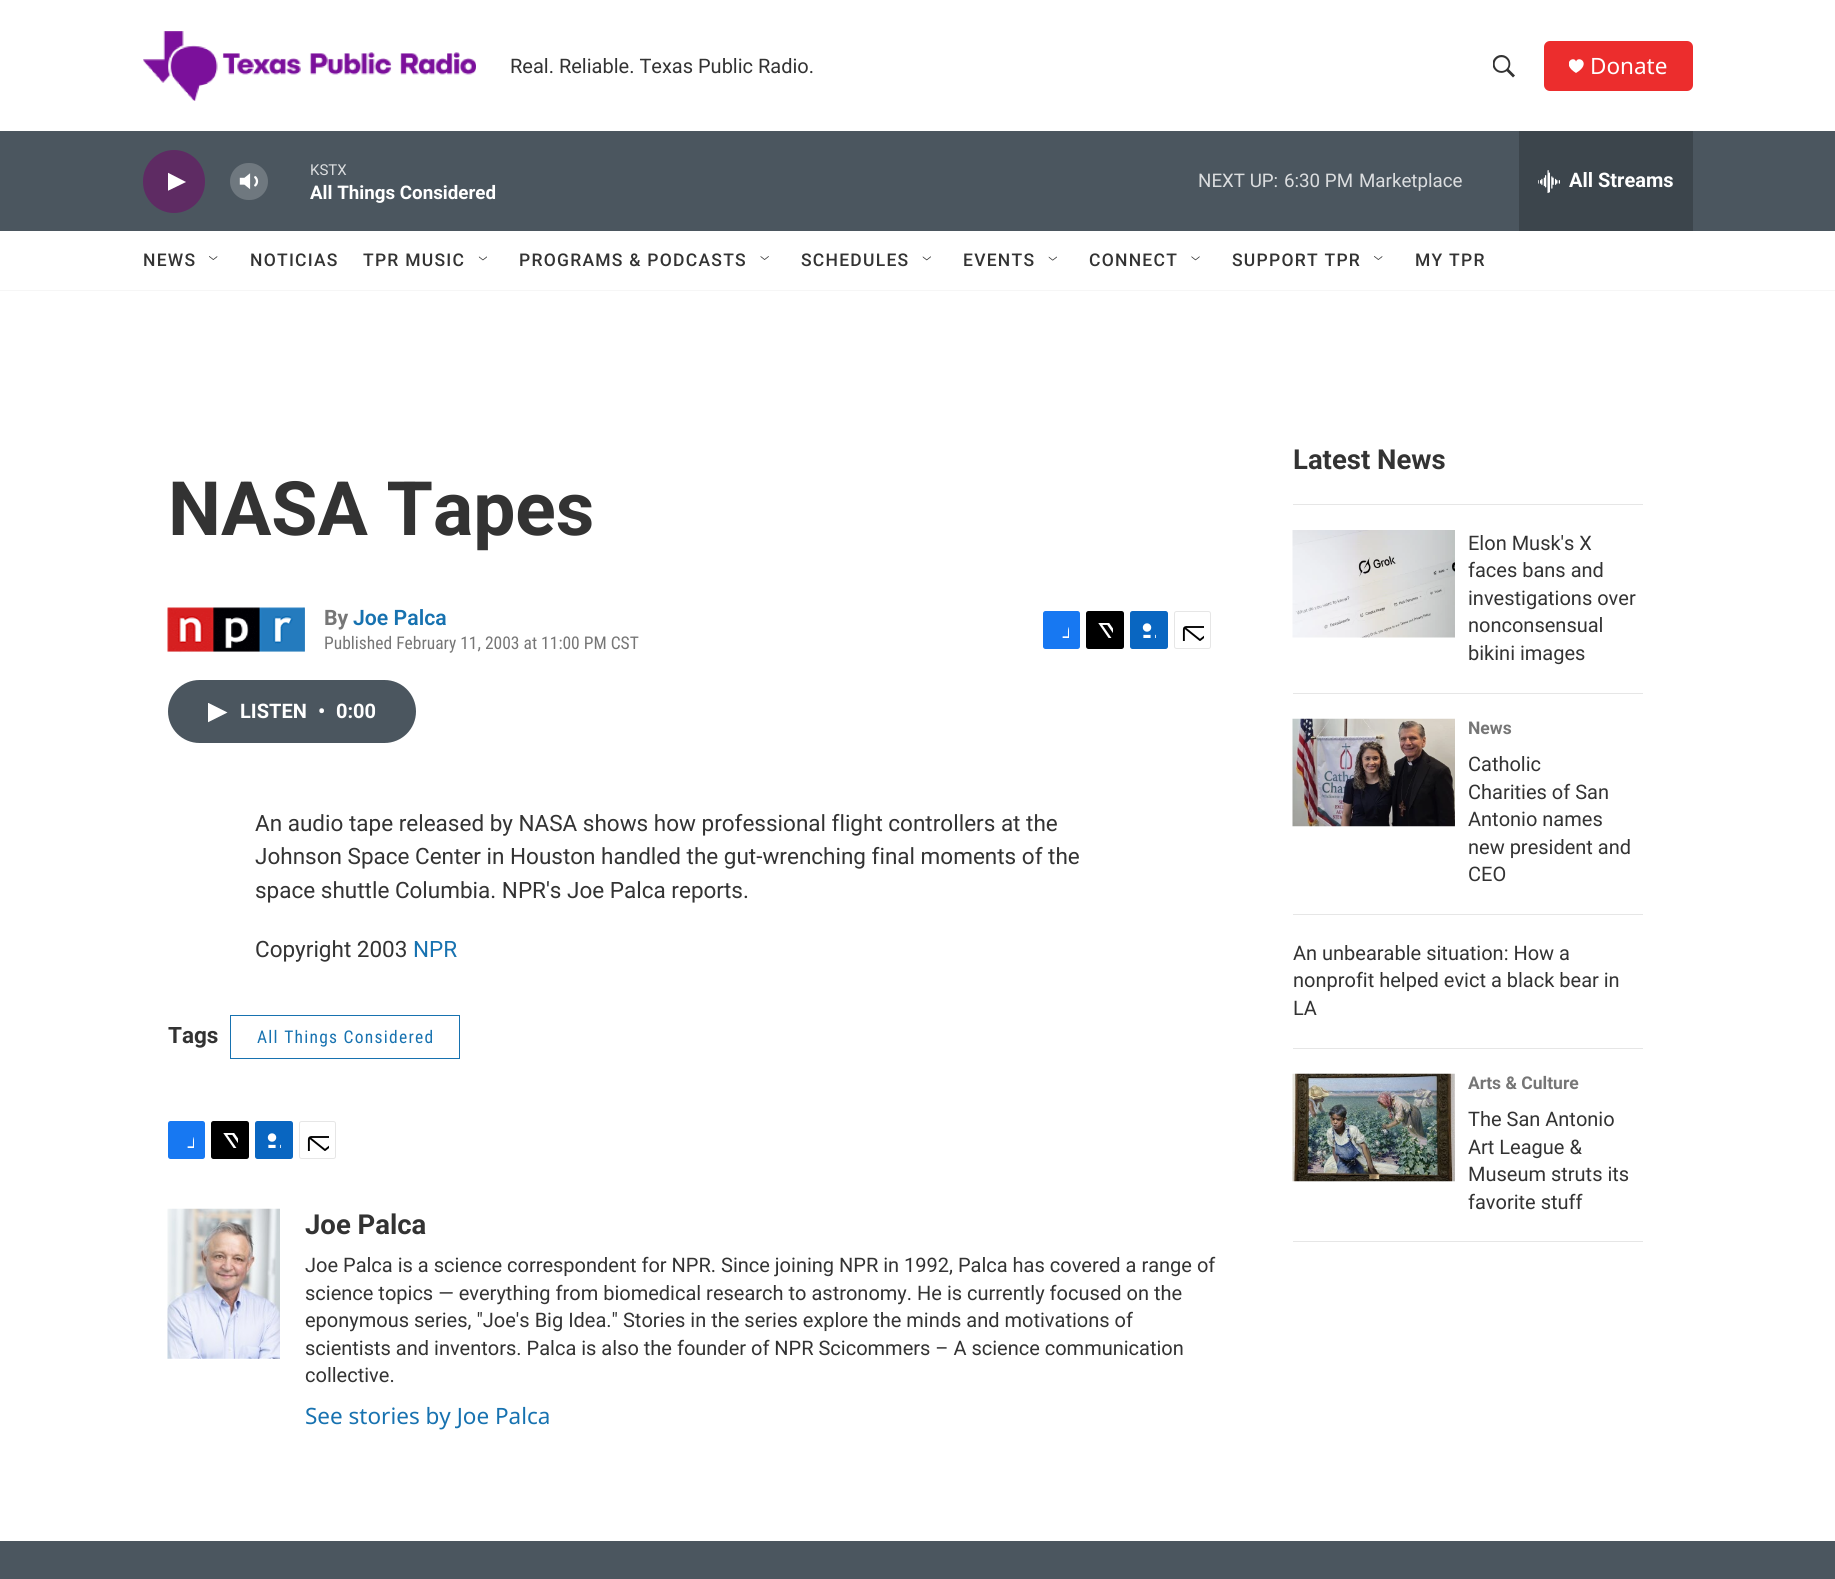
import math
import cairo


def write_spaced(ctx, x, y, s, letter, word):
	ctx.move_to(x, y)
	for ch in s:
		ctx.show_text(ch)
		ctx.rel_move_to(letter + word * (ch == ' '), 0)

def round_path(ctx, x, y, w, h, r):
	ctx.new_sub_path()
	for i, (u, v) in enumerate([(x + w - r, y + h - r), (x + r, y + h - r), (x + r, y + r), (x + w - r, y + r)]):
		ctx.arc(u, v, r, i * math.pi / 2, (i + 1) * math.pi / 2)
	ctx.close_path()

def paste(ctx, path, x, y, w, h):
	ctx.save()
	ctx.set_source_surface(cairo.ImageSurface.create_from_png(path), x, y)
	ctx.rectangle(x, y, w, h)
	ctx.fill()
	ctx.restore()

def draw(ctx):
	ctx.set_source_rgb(1, 1, 1)
	ctx.paint()
	ctx.set_source_rgb(0.961, 0.961, 0.961)
	ctx.rectangle(0, 290, 1835, 1)
	ctx.fill()
	paste(ctx, 'media/1.png', 143, 31, 333, 70)
	ctx.select_font_face('Roboto')
	ctx.set_font_size(20)
	ctx.set_source_rgb(0.2, 0.2, 0.2)
	ctx.move_to(510, 73)
	ctx.show_text('Real. Reliable. Texas Public Radio.')
	paste(ctx, 'media/2.png', 1493, 55, 22, 23)
	ctx.set_source_rgb(0.925, 0.176, 0.176)
	round_path(ctx, 1544, 41, 149, 50, 6)
	ctx.fill()
	ctx.save()
	ctx.rectangle(1569, 59, 15, 15)
	ctx.clip()
	ctx.set_source_rgb(1, 1, 1)
	ctx.new_path()
	ctx.move_to(1576, 61.5)
	ctx.curve_to(1574, 55, 1560.5, 63.5, 1576, 73)
	ctx.curve_to(1592, 63.5, 1578.5, 55, 1576, 61.5)
	ctx.close_path()
	ctx.fill()
	ctx.restore()
	ctx.select_font_face('Noto Sans')
	ctx.set_font_size(22.5)
	ctx.set_source_rgb(1, 1, 1)
	ctx.move_to(1590, 74)
	ctx.show_text('Donate')
	ctx.set_source_rgb(0.294, 0.337, 0.373)
	ctx.rectangle(0, 131, 1835, 100)
	ctx.fill()
	ctx.set_source_rgb(0.369, 0.169, 0.388)
	round_path(ctx, 143, 150, 62, 63, 31)
	ctx.fill()
	ctx.save()
	ctx.rectangle(168, 170, 18, 24)
	ctx.clip()
	ctx.set_source_rgb(1, 1, 1)
	ctx.new_path()
	ctx.move_to(167.5, 172.5)
	ctx.line_to(186, 182)
	ctx.line_to(167.5, 191)
	ctx.close_path()
	ctx.fill()
	ctx.restore()
	paste(ctx, 'media/3.png', 239, 173, 20, 17)
	ctx.set_source_rgba(1, 1, 1, 0.2)
	round_path(ctx, 230, 163, 38, 37, 18.5)
	ctx.fill()
	ctx.select_font_face('Roboto')
	ctx.set_font_size(15)
	ctx.set_source_rgb(0.859, 0.867, 0.875)
	ctx.move_to(310, 175)
	ctx.show_text('KSTX')
	ctx.select_font_face('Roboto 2', cairo.FONT_SLANT_NORMAL, cairo.FONT_WEIGHT_BOLD)
	ctx.set_font_size(18.75)
	ctx.set_source_rgb(1, 1, 1)
	ctx.move_to(310, 199)
	ctx.show_text('All Things Considered')
	ctx.select_font_face('Roboto')
	ctx.set_source_rgb(0.859, 0.867, 0.875)
	for x, y, s in [
		(1198, 187, 'NEXT UP:'),
		(1284, 187, '6:30 PM'),
		(1359, 187, 'Marketplace'),
	]:
		ctx.move_to(x, y)
		ctx.show_text(s)
	ctx.set_source_rgb(0.235, 0.271, 0.298)
	ctx.rectangle(1519, 131, 174, 100)
	ctx.fill()
	paste(ctx, 'media/4.png', 1538, 170, 22, 23)
	ctx.select_font_face('Roboto 2', cairo.FONT_SLANT_NORMAL, cairo.FONT_WEIGHT_BOLD)
	ctx.set_font_size(20)
	ctx.set_source_rgb(1, 1, 1)
	ctx.move_to(1569, 187)
	ctx.show_text('All Streams')
	ctx.select_font_face('Roboto Medium')
	ctx.set_font_size(17.5)
	ctx.set_source_rgb(0.2, 0.2, 0.2)
	write_spaced(ctx, 143, 266, 'NEWS', 1.25, 0)
	paste(ctx, 'media/5.png', 209, 256, 9, 4)
	write_spaced(ctx, 250, 266, 'NOTICIAS', 1.25, 0)
	write_spaced(ctx, 363, 266, 'TPR MUSIC', 1.25, 0)
	paste(ctx, 'media/6.png', 478, 256, 9, 5)
	write_spaced(ctx, 519, 266, 'PROGRAMS & PODCASTS', 1.25, 0)
	paste(ctx, 'media/7.png', 760, 256, 9, 4)
	write_spaced(ctx, 801, 266, 'SCHEDULES', 1.25, 0)
	paste(ctx, 'media/8.png', 922, 256, 9, 5)
	write_spaced(ctx, 963, 266, 'EVENTS', 1.25, 0)
	paste(ctx, 'media/9.png', 1048, 256, 9, 5)
	write_spaced(ctx, 1089, 266, 'CONNECT', 1.25, 0)
	paste(ctx, 'media/10.png', 1191, 256, 9, 5)
	write_spaced(ctx, 1232, 266, 'SUPPORT TPR', 1.25, 0)
	paste(ctx, 'media/11.png', 1374, 256, 9, 4)
	write_spaced(ctx, 1415, 266, 'MY TPR', 1.25, 0)
	ctx.select_font_face('Roboto', cairo.FONT_SLANT_NORMAL, cairo.FONT_WEIGHT_BOLD)
	ctx.set_font_size(75)
	ctx.move_to(168, 535)
	ctx.show_text('NASA Tapes')
	paste(ctx, 'media/12.png', 167, 607, 138, 46)
	ctx.set_font_size(21.25)
	ctx.set_source_rgb(0.463, 0.463, 0.463)
	ctx.move_to(324, 625)
	ctx.show_text('By')
	ctx.select_font_face('Roboto SemiBold')
	ctx.set_source_rgb(0.09, 0.447, 0.69)
	ctx.move_to(353, 625)
	ctx.show_text('Joe Palca')
	ctx.select_font_face('Roboto Condensed')
	ctx.set_font_size(17.5)
	ctx.set_source_rgb(0.463, 0.463, 0.463)
	ctx.move_to(324, 649)
	ctx.show_text('Published February 11, 2003 at 11:00 PM CST')
	ctx.set_source_rgb(0.09, 0.471, 0.949)
	round_path(ctx, 1043, 611, 37, 38, 2.5)
	ctx.fill()
	paste(ctx, 'media/13.png', 1062, 627, 7, 11)
	ctx.set_source_rgb(0, 0, 0)
	round_path(ctx, 1086, 611, 38, 38, 2.5)
	ctx.fill()
	paste(ctx, 'media/14.png', 1098, 623, 15, 15)
	ctx.set_source_rgb(0.039, 0.4, 0.757)
	round_path(ctx, 1130, 611, 38, 38, 2.5)
	ctx.fill()
	paste(ctx, 'media/15.png', 1142, 623, 14, 15)
	round_path(ctx, 1174.5, 611.5, 36, 37, 2)
	ctx.set_source_rgb(0.902, 0.902, 0.902)
	ctx.set_line_width(1)
	ctx.stroke()
	paste(ctx, 'media/16.png', 1182, 626, 22, 15)
	ctx.set_source_rgb(0.294, 0.337, 0.373)
	round_path(ctx, 168, 680, 248, 63, 31.5)
	ctx.fill()
	ctx.save()
	ctx.rectangle(208, 703, 20, 20)
	ctx.clip()
	ctx.set_source_rgb(1, 1, 1)
	ctx.new_path()
	ctx.move_to(207.5, 702.5)
	ctx.line_to(227.5, 712.5)
	ctx.line_to(207.5, 722.5)
	ctx.close_path()
	ctx.fill()
	ctx.restore()
	ctx.select_font_face('Roboto 2', cairo.FONT_SLANT_NORMAL, cairo.FONT_WEIGHT_BOLD)
	ctx.set_font_size(20)
	ctx.set_source_rgb(1, 1, 1)
	for x, y, s in [
		(240, 718, 'LISTEN'),
		(318, 718, '•'),
		(336, 718, '0:00'),
	]:
		ctx.move_to(x, y)
		ctx.show_text(s)
	ctx.select_font_face('Roboto')
	ctx.set_font_size(22.5)
	ctx.set_source_rgb(0.2, 0.2, 0.2)
	for x, y, s in [
		(255, 831, 'An audio tape released by NASA shows how professional flight controllers at the'),
		(255, 864, 'Johnson Space Center in Houston handled the gut-wrenching final moments of the'),
		(255, 898, 'space shuttle Columbia. NPR\'s Joe Palca reports.'),
		(255, 957, 'Copyright 2003'),
	]:
		ctx.move_to(x, y)
		ctx.show_text(s)
	ctx.set_source_rgb(0.09, 0.447, 0.69)
	ctx.move_to(413, 957)
	ctx.show_text('NPR')
	ctx.select_font_face('Roboto', cairo.FONT_SLANT_NORMAL, cairo.FONT_WEIGHT_BOLD)
	ctx.set_source_rgb(0.2, 0.2, 0.2)
	ctx.move_to(168, 1043)
	ctx.show_text('Tags')
	ctx.rectangle(230.5, 1015.5, 229, 43)
	ctx.set_source_rgb(0.09, 0.447, 0.69)
	ctx.stroke()
	ctx.select_font_face('Roboto Condensed')
	ctx.set_font_size(17.5)
	write_spaced(ctx, 257, 1043, 'All Things Considered', 1.25, 0)
	ctx.set_source_rgb(0.09, 0.471, 0.949)
	round_path(ctx, 168, 1121, 37, 38, 2.5)
	ctx.fill()
	paste(ctx, 'media/13.png', 187, 1137, 7, 11)
	ctx.set_source_rgb(0, 0, 0)
	round_path(ctx, 211, 1121, 38, 38, 2.5)
	ctx.fill()
	paste(ctx, 'media/14.png', 223, 1133, 15, 15)
	ctx.set_source_rgb(0.039, 0.4, 0.757)
	round_path(ctx, 255, 1121, 38, 38, 2.5)
	ctx.fill()
	paste(ctx, 'media/15.png', 267, 1133, 14, 15)
	round_path(ctx, 299.5, 1121.5, 36, 37, 2)
	ctx.set_source_rgb(0.902, 0.902, 0.902)
	ctx.stroke()
	paste(ctx, 'media/16.png', 307, 1136, 22, 15)
	paste(ctx, 'media/17.png', 167, 1208, 113, 151)
	ctx.select_font_face('Roboto', cairo.FONT_SLANT_NORMAL, cairo.FONT_WEIGHT_BOLD)
	ctx.set_font_size(27.5)
	ctx.set_source_rgb(0.2, 0.2, 0.2)
	ctx.move_to(305, 1234)
	ctx.show_text('Joe Palca')
	ctx.select_font_face('Roboto')
	ctx.set_font_size(20)
	for x, y, s in [
		(305, 1272, 'Joe Palca is a science correspondent for NPR. Since joining NPR in 1992, Palca has covered a range of'),
		(305, 1300, 'science topics — everything from biomedical research to astronomy. He is currently focused on the'),
		(305, 1327, 'eponymous series, "Joe\'s Big Idea." Stories in the series explore the minds and motivations of'),
		(305, 1355, 'scientists and inventors. Palca is also the founder of NPR Scicommers – A science communication'),
		(305, 1382, 'collective.'),
	]:
		ctx.move_to(x, y)
		ctx.show_text(s)
	ctx.select_font_face('Noto Sans')
	ctx.set_font_size(22.5)
	ctx.set_source_rgb(0.09, 0.447, 0.69)
	ctx.move_to(305, 1424)
	ctx.show_text('See stories by Joe Palca')
	ctx.set_source_rgb(0.902, 0.902, 0.902)
	ctx.rectangle(1293, 504, 350, 1)
	ctx.fill()
	ctx.select_font_face('Roboto', cairo.FONT_SLANT_NORMAL, cairo.FONT_WEIGHT_BOLD)
	ctx.set_font_size(27.5)
	ctx.set_source_rgb(0.2, 0.2, 0.2)
	ctx.move_to(1293, 469)
	ctx.show_text('Latest News')
	ctx.set_source_rgb(0.902, 0.902, 0.902)
	ctx.rectangle(1293, 693, 350, 1)
	ctx.fill()
	paste(ctx, 'media/18.png', 1292, 530, 163, 108)
	ctx.select_font_face('Roboto')
	ctx.set_font_size(20)
	ctx.set_source_rgb(0.2, 0.2, 0.2)
	for x, y, s in [
		(1468, 550, 'Elon Musk\'s X'),
		(1468, 577, 'faces bans and'),
		(1468, 605, 'investigations over'),
		(1468, 632, 'nonconsensual'),
		(1468, 660, 'bikini images'),
	]:
		ctx.move_to(x, y)
		ctx.show_text(s)
	ctx.set_source_rgb(0.902, 0.902, 0.902)
	ctx.rectangle(1293, 914, 350, 1)
	ctx.fill()
	paste(ctx, 'media/19.png', 1292, 718, 163, 109)
	ctx.select_font_face('Roboto', cairo.FONT_SLANT_NORMAL, cairo.FONT_WEIGHT_BOLD)
	ctx.set_font_size(17.5)
	ctx.set_source_rgb(0.463, 0.463, 0.463)
	ctx.move_to(1468, 734)
	ctx.show_text('News')
	ctx.select_font_face('Roboto')
	ctx.set_font_size(20)
	ctx.set_source_rgb(0.2, 0.2, 0.2)
	for x, y, s in [
		(1468, 771, 'Catholic'),
		(1468, 799, 'Charities of San'),
		(1468, 826, 'Antonio names'),
		(1468, 854, 'new president and'),
		(1468, 881, 'CEO'),
	]:
		ctx.move_to(x, y)
		ctx.show_text(s)
	ctx.set_source_rgb(0.902, 0.902, 0.902)
	ctx.rectangle(1293, 1048, 350, 1)
	ctx.fill()
	ctx.set_source_rgb(0.2, 0.2, 0.2)
	for x, y, s in [
		(1293, 960, 'An unbearable situation: How a'),
		(1293, 987, 'nonprofit helped evict a black bear in'),
		(1293, 1015, 'LA'),
	]:
		ctx.move_to(x, y)
		ctx.show_text(s)
	ctx.set_source_rgb(0.902, 0.902, 0.902)
	ctx.rectangle(1293, 1241, 350, 1)
	ctx.fill()
	paste(ctx, 'media/20.png', 1292, 1073, 163, 109)
	ctx.select_font_face('Roboto', cairo.FONT_SLANT_NORMAL, cairo.FONT_WEIGHT_BOLD)
	ctx.set_font_size(17.5)
	ctx.set_source_rgb(0.463, 0.463, 0.463)
	ctx.move_to(1468, 1089)
	ctx.show_text('Arts & Culture')
	ctx.select_font_face('Roboto')
	ctx.set_font_size(20)
	ctx.set_source_rgb(0.2, 0.2, 0.2)
	for x, y, s in [
		(1468, 1126, 'The San Antonio'),
		(1468, 1154, 'Art League &'),
		(1468, 1181, 'Museum struts its'),
		(1468, 1209, 'favorite stuff'),
	]:
		ctx.move_to(x, y)
		ctx.show_text(s)
	ctx.set_source_rgb(0.294, 0.337, 0.373)
	ctx.rectangle(0, 1541, 1835, 38)
	ctx.fill()


surface = cairo.ImageSurface(cairo.FORMAT_RGB24, 1835, 1579)
ctx = cairo.Context(surface)
options = cairo.FontOptions()
options.set_hint_metrics(cairo.HINT_METRICS_OFF)
options.set_hint_style(cairo.HINT_STYLE_NONE)
ctx.set_font_options(options)
ctx.set_miter_limit(4)
draw(ctx)
surface.write_to_png('image.png')
